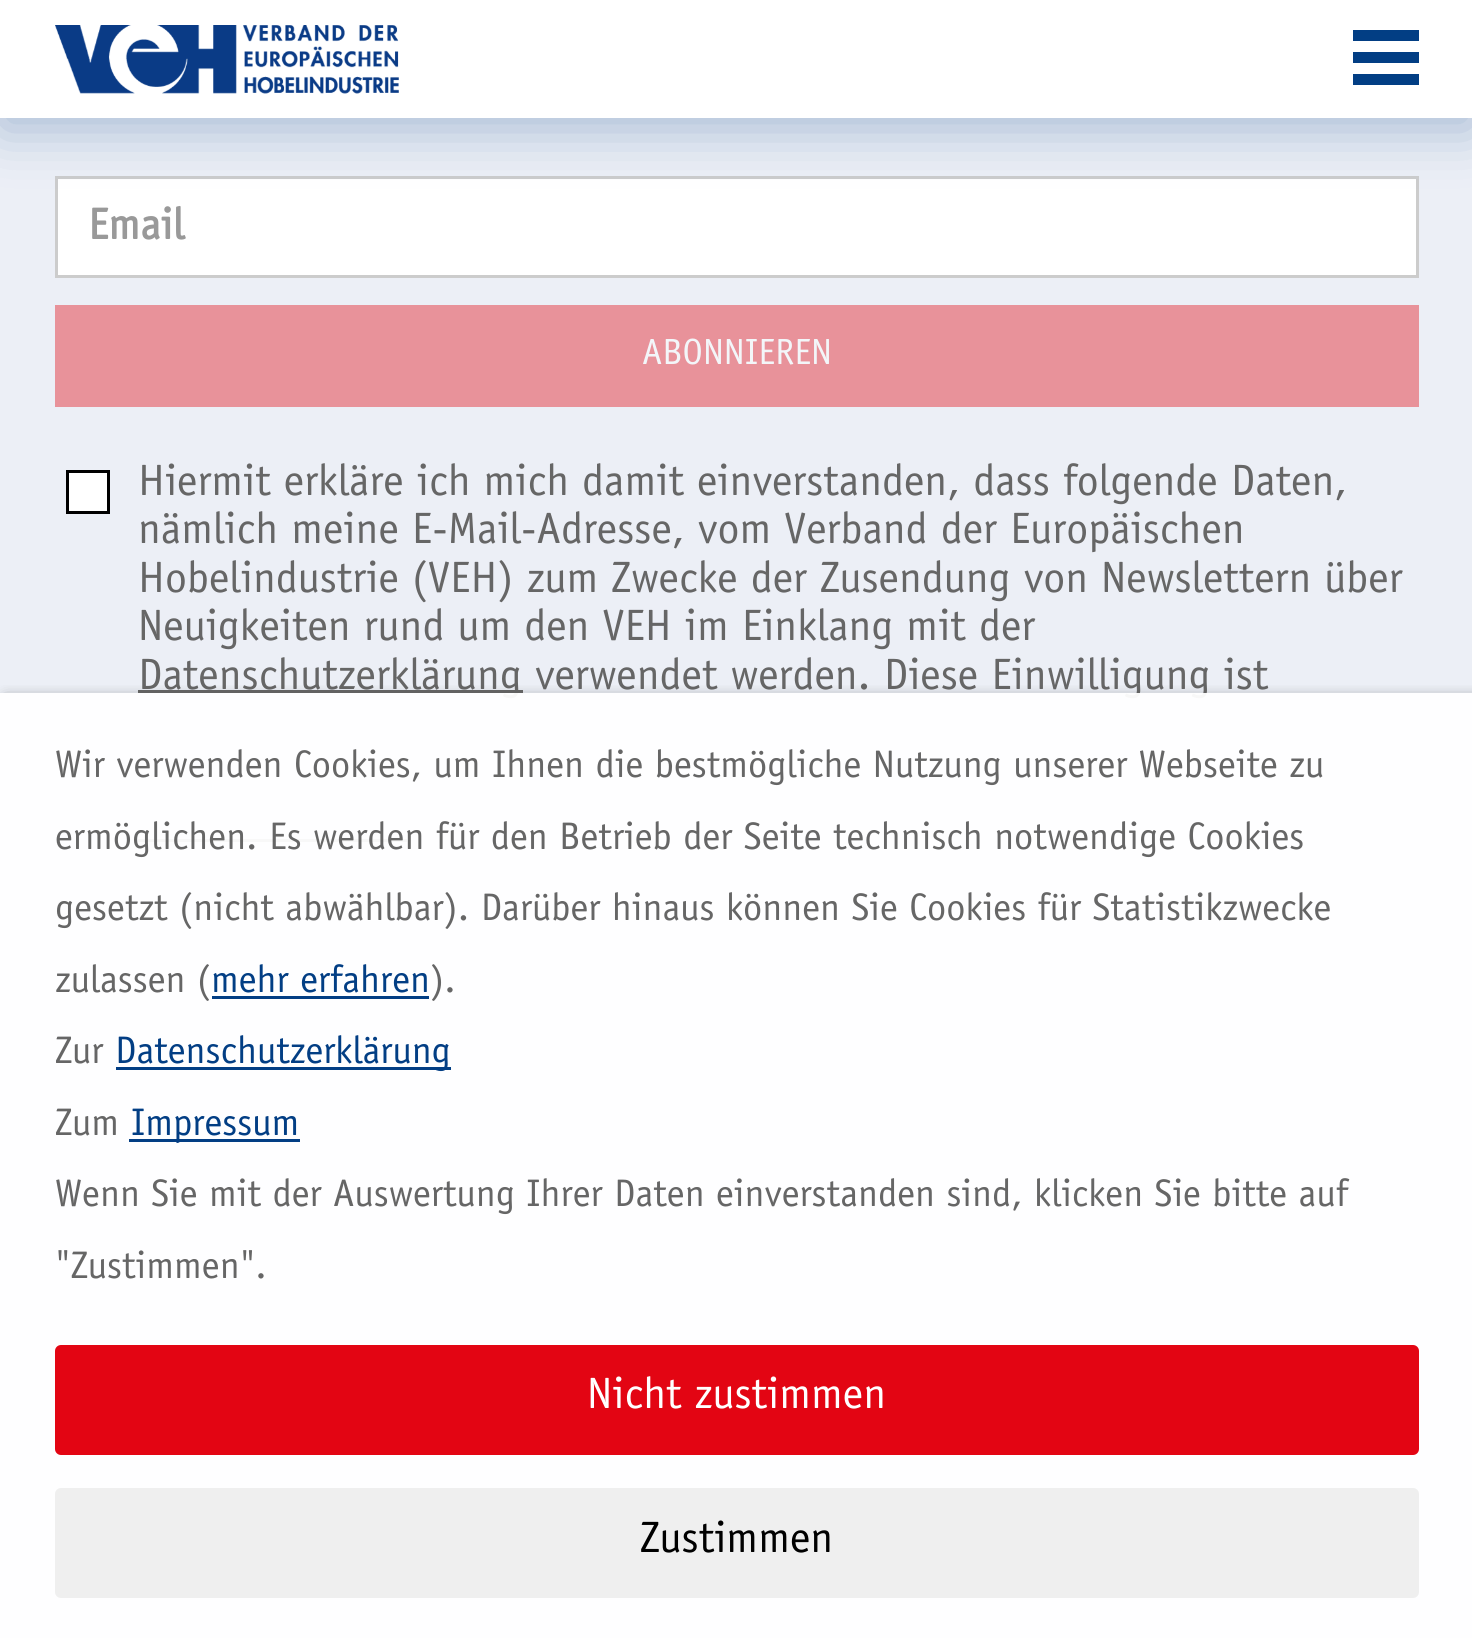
import math
import cairo


def round_path(ctx, x, y, w, h, r):
	ctx.new_sub_path()
	for i, (u, v) in enumerate([(x + w - r, y + h - r), (x + r, y + h - r), (x + r, y + r), (x + w - r, y + r)]):
		ctx.arc(u, v, r, i * math.pi / 2, (i + 1) * math.pi / 2)
	ctx.close_path()

def blur_box(ctx, x, y, w, h, r, blur, alpha):
	ctx.push_group_with_content(cairo.CONTENT_ALPHA)
	ctx.set_operator(cairo.OPERATOR_SOURCE)
	for i in range(15, -16, -2):
		e = blur * i / 6
		if min(w, h) + 2 * e > 0:
			ctx.set_source_rgba(0, 0, 0, alpha * math.erfc((i - 1) / 8.5) / 2)
			round_path(ctx, x - e, y - e, w + 2 * e, h + 2 * e, max(0, min(r + e + blur * .6, min(w, h) / 2 + e)))
			ctx.fill()
	ctx.mask(ctx.pop_group())

def paste(ctx, path, x, y, w, h):
	ctx.save()
	ctx.set_source_surface(cairo.ImageSurface.create_from_png(path), x, y)
	ctx.rectangle(x, y, w, h)
	ctx.fill()
	ctx.restore()

def draw(ctx):
	ctx.set_source_rgb(0.922, 0.937, 0.961)
	ctx.paint()
	ctx.set_source_rgb(1, 1, 1)
	ctx.rectangle(56.5, 177.5, 1361, 99)
	ctx.fill_preserve()
	ctx.set_source_rgb(0.8, 0.8, 0.8)
	ctx.set_line_width(3)
	ctx.stroke()
	ctx.set_source_rgb(0.008, 0.243, 0.518)
	blur_box(ctx, 0, 11, 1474, 118, 0, 27.5, 0.3)
	ctx.set_source_rgb(1, 1, 1)
	ctx.rectangle(0, 0, 1472, 118)
	ctx.fill()
	paste(ctx, 'media/1.png', 55, 25, 344, 69)
	ctx.set_source_rgb(0.008, 0.243, 0.518)
	ctx.rectangle(1353, 30, 66, 11)
	ctx.rectangle(1353, 52, 66, 11)
	ctx.rectangle(1353, 74, 66, 11)
	ctx.fill()
	ctx.select_font_face('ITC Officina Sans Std', cairo.FONT_SLANT_NORMAL, cairo.FONT_WEIGHT_BOLD)
	ctx.set_font_size(44)
	ctx.set_source_rgb(0.6, 0.6, 0.6)
	ctx.move_to(88, 239)
	ctx.show_text('Email')
	ctx.set_source_rgb(0.91, 0.573, 0.604)
	ctx.rectangle(55, 305, 1364, 102)
	ctx.fill()
	ctx.select_font_face('ITC Officina Sans Std')
	ctx.set_font_size(36.5)
	ctx.set_source_rgb(0.953, 0.961, 0.976)
	ctx.move_to(642, 364)
	ctx.show_text('ABONNIEREN')
	ctx.set_source_rgb(1, 1, 1)
	ctx.rectangle(67.5, 471.5, 41, 41)
	ctx.fill_preserve()
	ctx.set_source_rgb(0, 0, 0)
	ctx.stroke()
	ctx.set_font_size(44)
	ctx.set_source_rgb(0.4, 0.4, 0.4)
	for x, y, s in [
		(138, 495, 'Hiermit erkläre ich mich damit einverstanden, dass folgende Daten,'),
		(138, 543, 'nämlich meine E-Mail-Adresse, vom Verband der Europäischen'),
		(138, 592, 'Hobelindustrie (VEH) zum Zwecke der Zusendung von Newslettern über'),
		(138, 640, 'Neuigkeiten rund um den VEH im Einklang mit der'),
	]:
		ctx.move_to(x, y)
		ctx.show_text(s)
	ctx.rectangle(138, 690, 385, 3)
	ctx.fill()
	ctx.move_to(138, 689)
	ctx.show_text('Datenschutzerklärung verwendet werden. Diese Einwilligung ist')
	ctx.rectangle(138, 839, 269, 3)
	ctx.fill()
	ctx.save()
	ctx.rectangle(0, 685, 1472, 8)
	ctx.clip()
	ctx.set_source_rgb(0.267, 0.267, 0.267)
	blur_box(ctx, 6, 699, 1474, 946, 0, 7, 0.75)
	ctx.restore()
	ctx.set_source_rgba(1, 1, 1, 0.95)
	ctx.rectangle(0, 693, 1472, 945)
	ctx.fill()
	ctx.set_font_size(38.5)
	ctx.set_source_rgb(0.4, 0.4, 0.4)
	for x, y, s in [
		(55, 777, 'Wir verwenden Cookies, um Ihnen die bestmögliche Nutzung unserer Webseite zu'),
		(55, 849, 'ermöglichen. Es werden für den Betrieb der Seite technisch notwendige Cookies'),
		(55, 920, 'gesetzt (nicht abwählbar). Darüber hinaus können Sie Cookies für Statistikzwecke'),
		(55, 992, 'zulassen ('),
	]:
		ctx.move_to(x, y)
		ctx.show_text(s)
	ctx.set_source_rgb(0.008, 0.243, 0.518)
	ctx.move_to(211, 992)
	ctx.show_text('mehr erfahren')
	ctx.rectangle(212, 996, 217, 3)
	ctx.fill()
	ctx.set_source_rgb(0.4, 0.4, 0.4)
	ctx.move_to(430, 992)
	ctx.show_text(').')
	ctx.move_to(55, 1063)
	ctx.show_text('Zur')
	ctx.set_source_rgb(0.008, 0.243, 0.518)
	ctx.rectangle(116, 1067, 335, 3)
	ctx.fill()
	ctx.move_to(115, 1063)
	ctx.show_text('Datenschutzerklärung')
	ctx.set_source_rgb(0.4, 0.4, 0.4)
	ctx.move_to(55, 1135)
	ctx.show_text('Zum')
	ctx.set_source_rgb(0.008, 0.243, 0.518)
	ctx.rectangle(129, 1139, 171, 3)
	ctx.fill()
	ctx.move_to(131, 1135)
	ctx.show_text('Impressum')
	ctx.set_source_rgb(0.4, 0.4, 0.4)
	ctx.move_to(55, 1206)
	ctx.show_text('Wenn Sie mit der Auswertung Ihrer Daten einverstanden sind, klicken Sie bitte auf')
	ctx.move_to(55, 1278)
	ctx.show_text('"Zustimmen".')
	ctx.set_source_rgb(0.89, 0.02, 0.075)
	round_path(ctx, 55, 1345, 1364, 110, 6)
	ctx.fill()
	ctx.set_font_size(44)
	ctx.set_source_rgb(1, 1, 1)
	ctx.move_to(587, 1408)
	ctx.show_text('Nicht zustimmen')
	ctx.set_source_rgb(0.937, 0.937, 0.937)
	round_path(ctx, 55, 1488, 1364, 110, 6)
	ctx.fill()
	ctx.set_source_rgb(0, 0, 0)
	ctx.move_to(640, 1552)
	ctx.show_text('Zustimmen')


surface = cairo.ImageSurface(cairo.FORMAT_RGB24, 1472, 1638)
ctx = cairo.Context(surface)
options = cairo.FontOptions()
options.set_hint_metrics(cairo.HINT_METRICS_OFF)
options.set_hint_style(cairo.HINT_STYLE_NONE)
ctx.set_font_options(options)
ctx.set_miter_limit(4)
draw(ctx)
surface.write_to_png('image.png')
